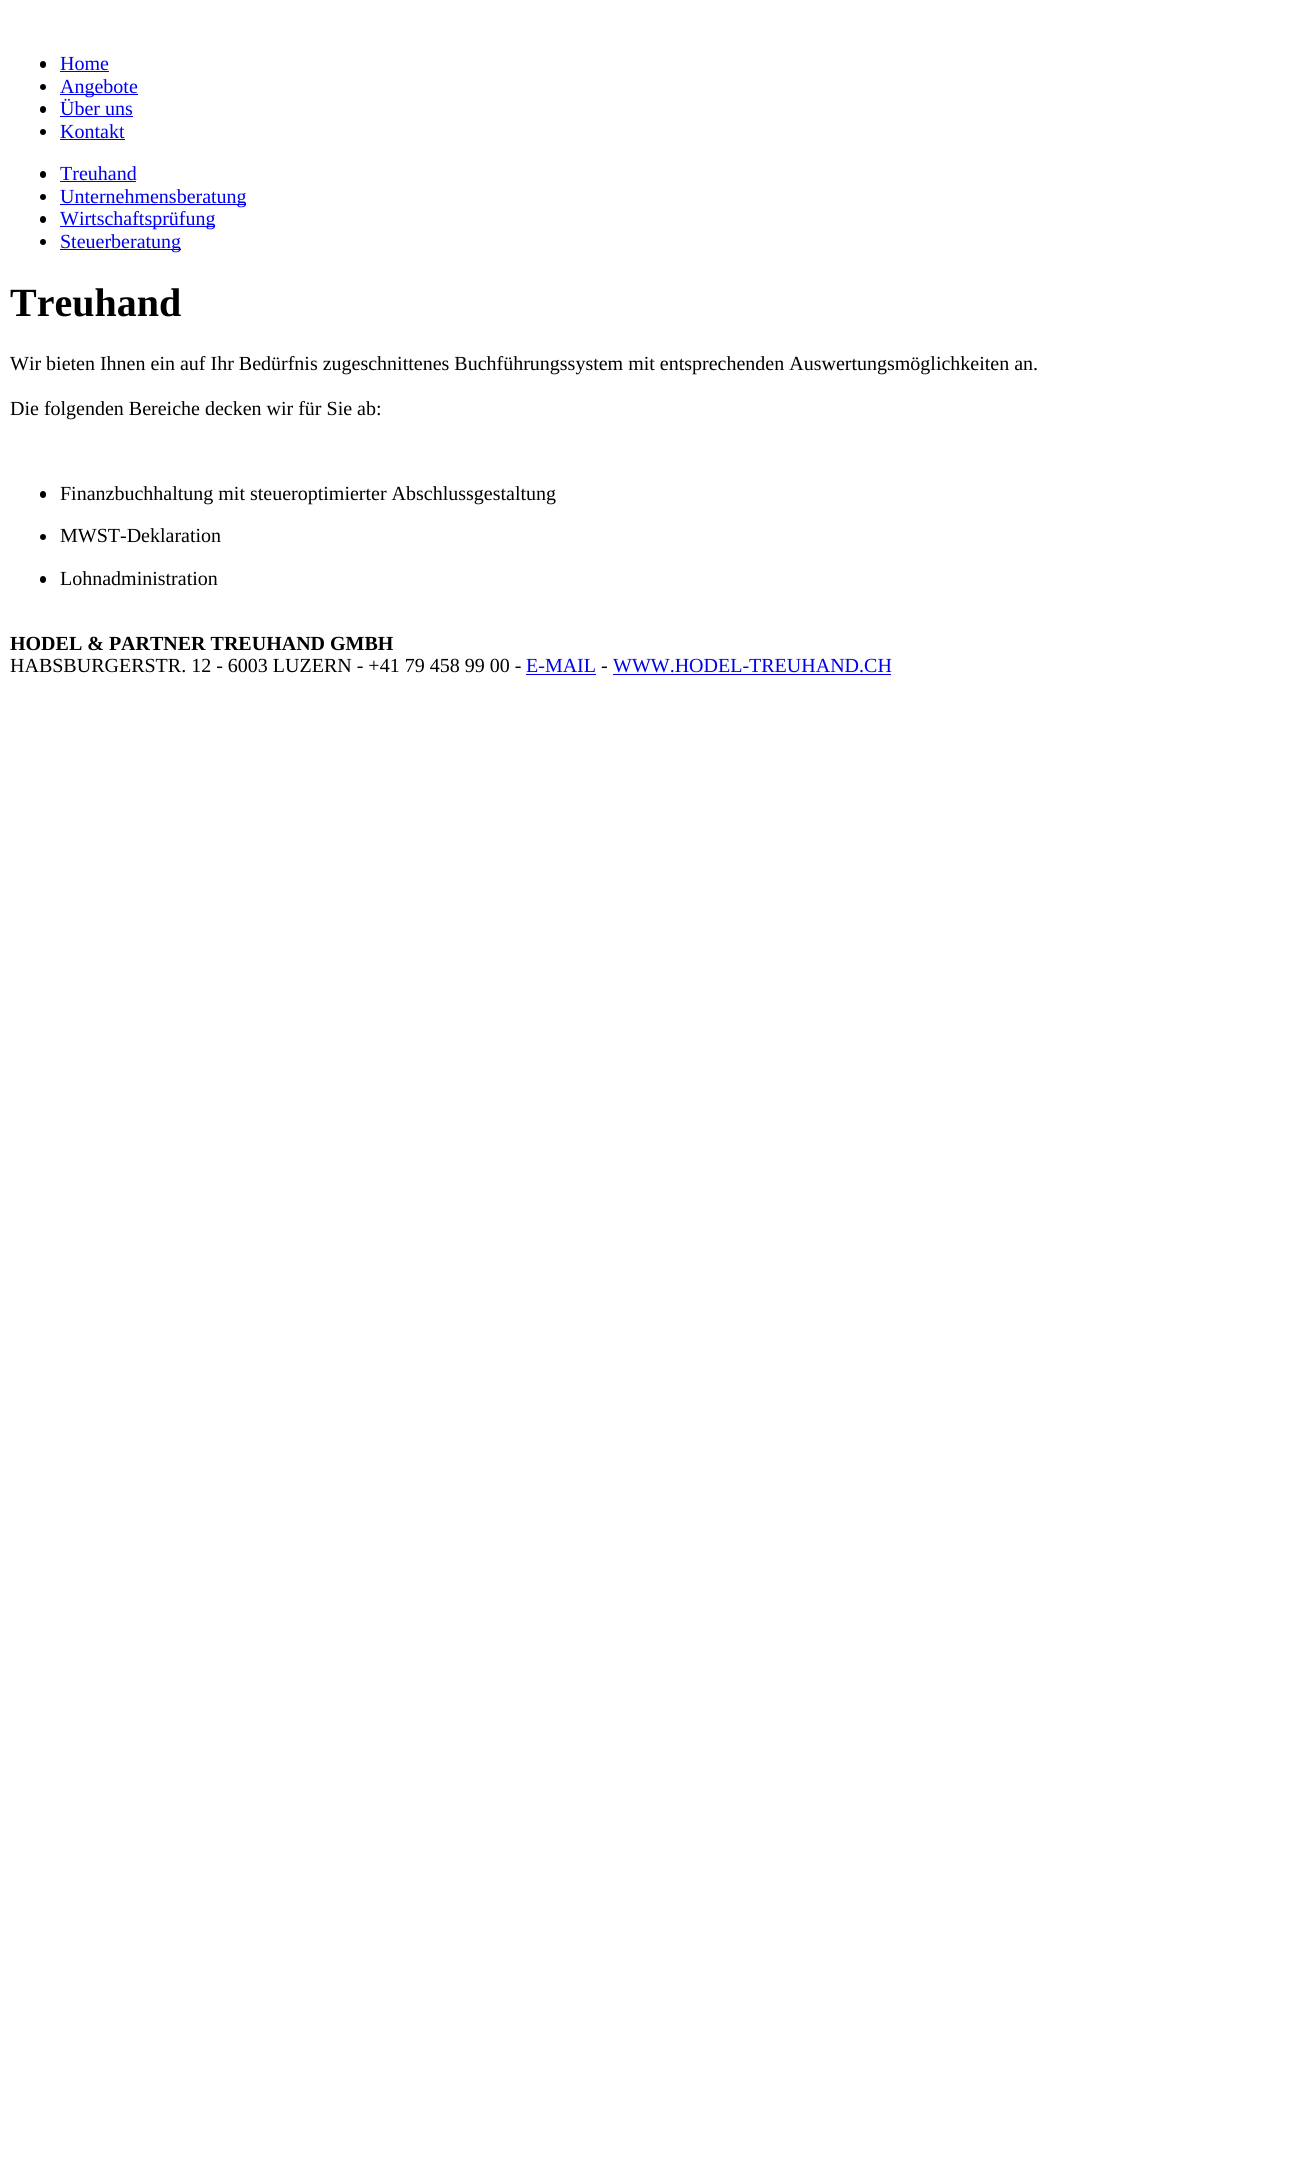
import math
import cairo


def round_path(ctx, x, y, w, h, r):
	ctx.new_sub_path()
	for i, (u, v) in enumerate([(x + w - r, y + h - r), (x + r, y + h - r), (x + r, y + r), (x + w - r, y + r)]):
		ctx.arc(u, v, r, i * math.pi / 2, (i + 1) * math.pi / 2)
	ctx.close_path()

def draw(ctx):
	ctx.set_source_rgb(1, 1, 1)
	ctx.paint()
	ctx.set_source_rgb(0, 0, 0)
	round_path(ctx, 40, 61, 6, 7, 3)
	ctx.fill()
	ctx.select_font_face('Liberation Serif')
	ctx.set_font_size(20)
	ctx.set_source_rgb(0, 0, 0.933)
	ctx.move_to(60, 70)
	ctx.show_text('Home')
	ctx.rectangle(60, 71, 49, 1)
	ctx.fill()
	ctx.set_source_rgb(0, 0, 0)
	ctx.arc(43, 87, 3, 0, 2 * math.pi)
	ctx.fill()
	ctx.set_source_rgb(0, 0, 0.933)
	ctx.rectangle(60, 94, 78, 1)
	ctx.fill()
	ctx.move_to(60, 93)
	ctx.show_text('Angebote')
	ctx.set_source_rgb(0, 0, 0)
	round_path(ctx, 40, 106, 6, 7, 3)
	ctx.fill()
	ctx.set_source_rgb(0, 0, 0.933)
	ctx.move_to(60, 115)
	ctx.show_text('Über uns')
	ctx.rectangle(60, 116, 73, 1)
	ctx.fill()
	ctx.set_source_rgb(0, 0, 0)
	ctx.arc(43, 132, 3, 0, 2 * math.pi)
	ctx.fill()
	ctx.set_source_rgb(0, 0, 0.933)
	ctx.move_to(60, 138)
	ctx.show_text('Kontakt')
	ctx.rectangle(60, 139, 65, 1)
	ctx.fill()
	ctx.set_source_rgb(0, 0, 0)
	round_path(ctx, 40, 171, 6, 7, 3)
	ctx.fill()
	ctx.set_source_rgb(0, 0, 0.933)
	ctx.move_to(60, 180)
	ctx.show_text('Treuhand')
	ctx.rectangle(60, 181, 76, 1)
	ctx.fill()
	ctx.set_source_rgb(0, 0, 0)
	ctx.arc(43, 197, 3, 0, 2 * math.pi)
	ctx.fill()
	ctx.set_source_rgb(0, 0, 0.933)
	ctx.rectangle(60, 204, 186, 1)
	ctx.fill()
	ctx.move_to(60, 203)
	ctx.show_text('Unternehmensberatung')
	ctx.set_source_rgb(0, 0, 0)
	round_path(ctx, 40, 216, 6, 7, 3)
	ctx.fill()
	ctx.set_source_rgb(0, 0, 0.933)
	ctx.rectangle(60, 226, 155, 1)
	ctx.fill()
	ctx.move_to(60, 225)
	ctx.show_text('Wirtschaftsprüfung')
	ctx.set_source_rgb(0, 0, 0)
	ctx.new_path()
	ctx.arc(43, 242, 3, 0, 2 * math.pi)
	ctx.fill()
	ctx.set_source_rgb(0, 0, 0.933)
	ctx.rectangle(60, 249, 121, 1)
	ctx.fill()
	ctx.move_to(60, 248)
	ctx.show_text('Steuerberatung')
	ctx.select_font_face('Liberation Serif', cairo.FONT_SLANT_NORMAL, cairo.FONT_WEIGHT_BOLD)
	ctx.set_font_size(40)
	ctx.set_source_rgb(0, 0, 0)
	ctx.move_to(10, 316)
	ctx.show_text('Treuhand')
	ctx.select_font_face('Liberation Serif')
	ctx.set_font_size(20)
	ctx.move_to(10, 370)
	ctx.show_text('Wir bieten Ihnen ein auf Ihr Bedürfnis zugeschnittenes Buchführungssystem mit entsprechenden Auswertungsmöglichkeiten an.')
	ctx.move_to(10, 415)
	ctx.show_text('Die folgenden Bereiche decken wir für Sie ab:')
	round_path(ctx, 40, 491, 6, 7, 3)
	ctx.fill()
	ctx.move_to(60, 500)
	ctx.show_text('Finanzbuchhaltung mit steueroptimierter Abschlussgestaltung')
	ctx.new_path()
	ctx.arc(43, 537, 3, 0, 2 * math.pi)
	ctx.fill()
	ctx.move_to(60, 542)
	ctx.show_text('MWST-Deklaration')
	round_path(ctx, 40, 576, 6, 7, 3)
	ctx.fill()
	ctx.move_to(60, 585)
	ctx.show_text('Lohnadministration')
	ctx.select_font_face('Liberation Serif', cairo.FONT_SLANT_NORMAL, cairo.FONT_WEIGHT_BOLD)
	ctx.move_to(10, 650)
	ctx.show_text('HODEL & PARTNER TREUHAND GMBH')
	ctx.select_font_face('Liberation Serif')
	ctx.move_to(10, 672)
	ctx.show_text('HABSBURGERSTR. 12 - 6003 LUZERN - +41 79 458 99 00 -')
	ctx.set_source_rgb(0, 0, 0.933)
	ctx.move_to(526, 672)
	ctx.show_text('E-MAIL')
	ctx.rectangle(526, 674, 70, 1)
	ctx.fill()
	ctx.set_source_rgb(0, 0, 0)
	ctx.move_to(601, 672)
	ctx.show_text('-')
	ctx.set_source_rgb(0, 0, 0.933)
	ctx.move_to(613, 672)
	ctx.show_text('WWW.HODEL-TREUHAND.CH')
	ctx.rectangle(613, 674, 278, 1)
	ctx.fill()


surface = cairo.ImageSurface(cairo.FORMAT_RGB24, 1309, 2183)
ctx = cairo.Context(surface)
options = cairo.FontOptions()
options.set_hint_metrics(cairo.HINT_METRICS_OFF)
options.set_hint_style(cairo.HINT_STYLE_NONE)
ctx.set_font_options(options)
ctx.set_miter_limit(4)
draw(ctx)
surface.write_to_png('image.png')
